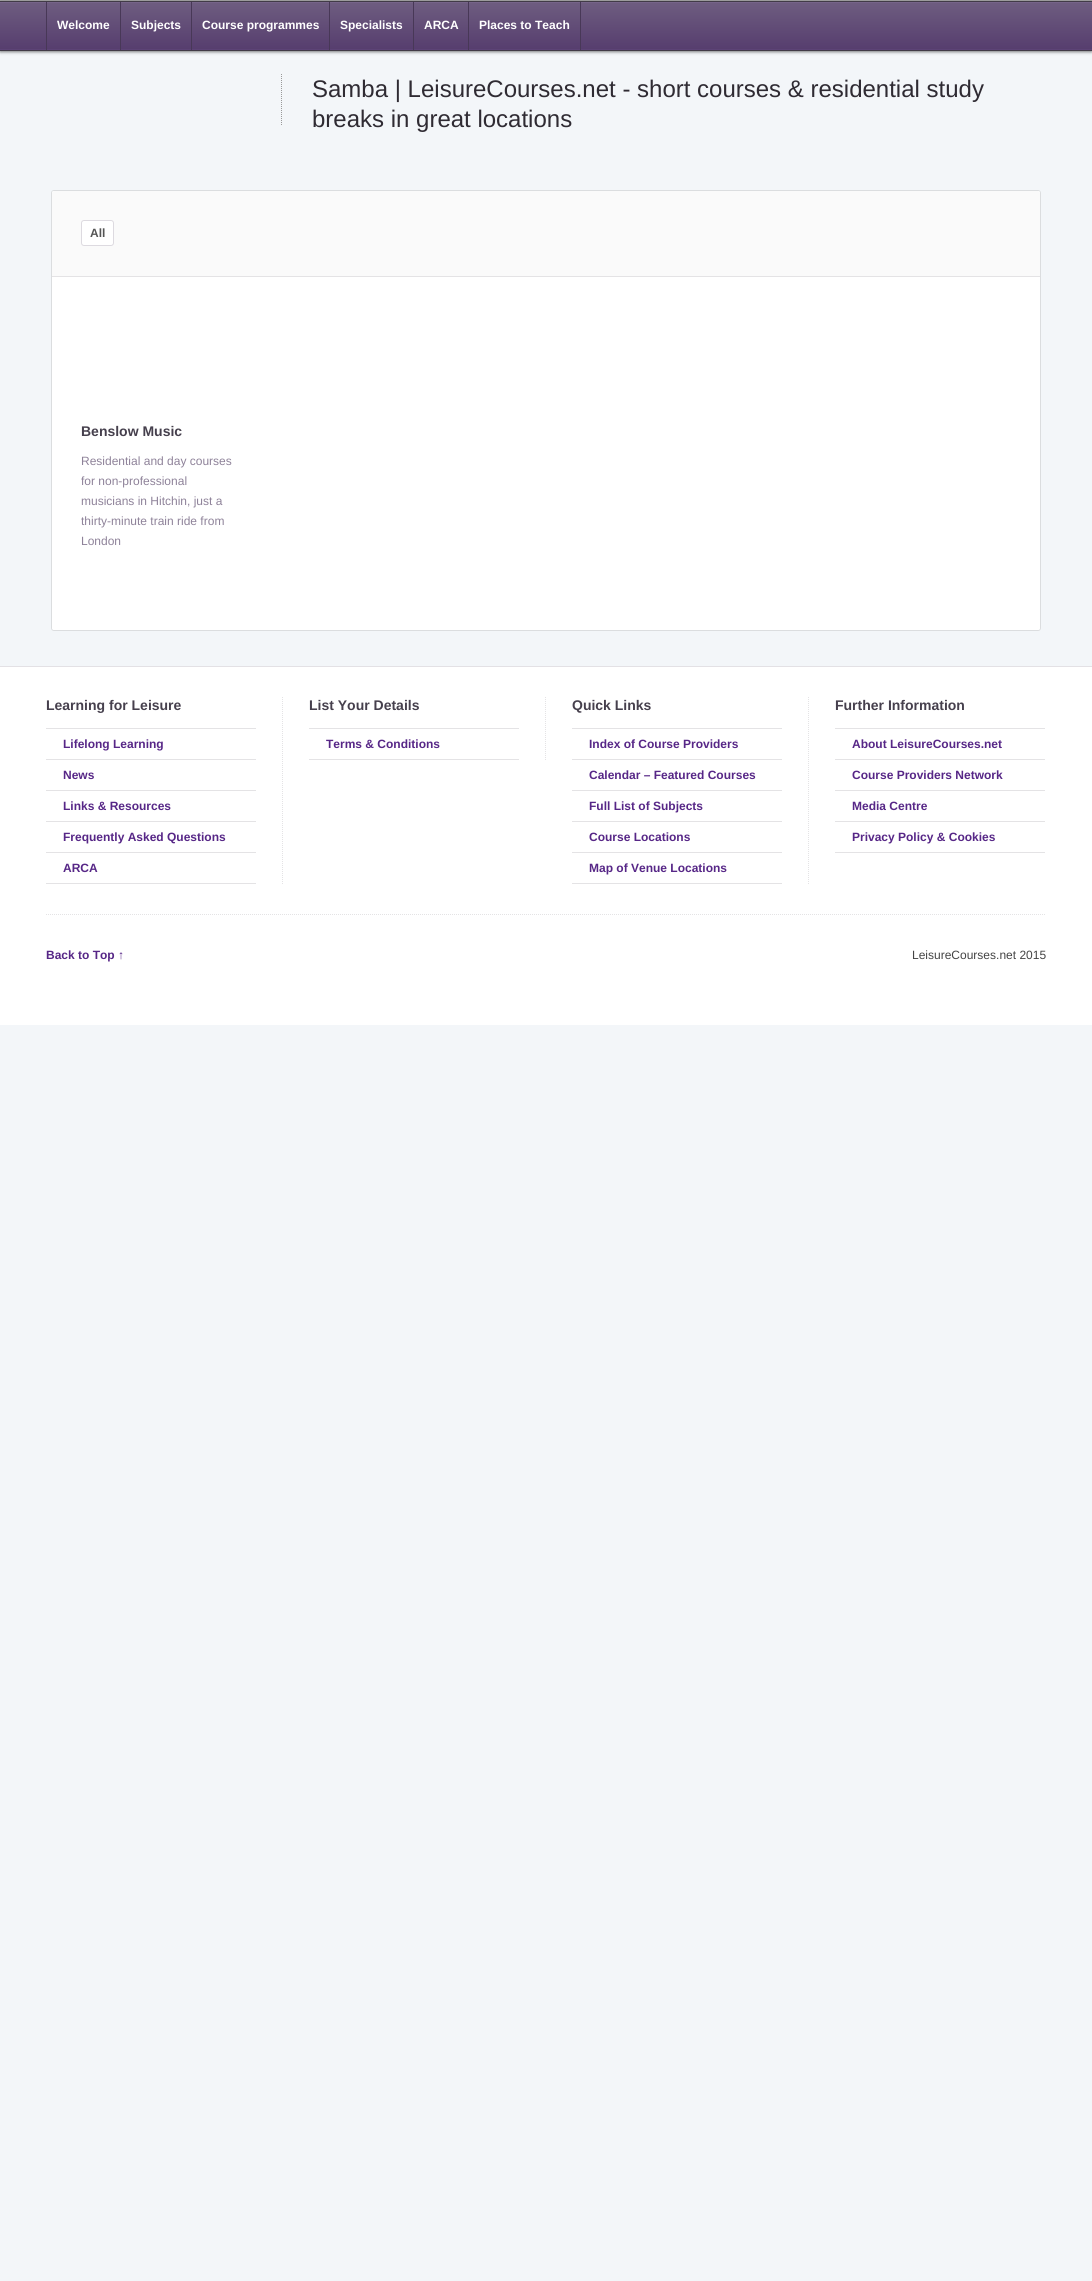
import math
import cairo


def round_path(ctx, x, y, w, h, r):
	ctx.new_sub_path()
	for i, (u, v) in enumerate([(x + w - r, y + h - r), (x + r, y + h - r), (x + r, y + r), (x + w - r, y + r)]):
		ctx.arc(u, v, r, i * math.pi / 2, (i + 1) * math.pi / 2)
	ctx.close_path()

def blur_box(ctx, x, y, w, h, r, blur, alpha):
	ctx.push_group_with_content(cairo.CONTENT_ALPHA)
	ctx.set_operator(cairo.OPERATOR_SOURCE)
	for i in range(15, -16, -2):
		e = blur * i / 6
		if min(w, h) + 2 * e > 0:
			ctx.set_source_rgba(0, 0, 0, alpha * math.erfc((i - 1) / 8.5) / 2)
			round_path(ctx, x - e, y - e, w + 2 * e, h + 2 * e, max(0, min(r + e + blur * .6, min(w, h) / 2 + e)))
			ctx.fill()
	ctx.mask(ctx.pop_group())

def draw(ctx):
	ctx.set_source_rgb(0.953, 0.961, 0.973)
	ctx.paint()
	ctx.set_source_rgb(0.667, 0.667, 0.667)
	ctx.rectangle(0, 0, 1092, 1)
	ctx.fill()
	ctx.set_source_rgb(0, 0, 0)
	blur_box(ctx, 0, 2, 1092, 50, 0, 1.5, 0.5)
	gradient = cairo.LinearGradient(546, 2, 546, 50)
	gradient.add_color_stop_rgba(0, 0.431, 0.365, 0.502, 1)
	gradient.add_color_stop_rgba(1, 0.337, 0.239, 0.431, 1)
	ctx.set_source(gradient)
	ctx.rectangle(0, 3, 1092, 46)
	ctx.fill()
	ctx.set_source_rgb(0.463, 0.392, 0.537)
	ctx.rectangle(0, 2, 1092, 1)
	ctx.fill()
	ctx.set_source_rgb(0.361, 0.263, 0.463)
	ctx.rectangle(0, 49, 1092, 1)
	ctx.fill()
	ctx.set_source_rgb(0.255, 0.231, 0.278)
	ctx.rectangle(0, 1, 1092, 1)
	ctx.rectangle(0, 50, 1092, 1)
	ctx.fill()
	ctx.set_source_rgb(0.282, 0.22, 0.341)
	ctx.rectangle(46, 2, 1, 48)
	ctx.rectangle(120, 2, 1, 48)
	ctx.fill()
	ctx.select_font_face('Liberation Sans', cairo.FONT_SLANT_NORMAL, cairo.FONT_WEIGHT_BOLD)
	ctx.set_font_size(12)
	ctx.set_source_rgb(1, 1, 1)
	ctx.move_to(57, 29)
	ctx.show_text('Welcome')
	ctx.set_source_rgb(0.282, 0.22, 0.341)
	ctx.rectangle(191, 2, 1, 48)
	ctx.fill()
	ctx.set_source_rgb(1, 1, 1)
	ctx.move_to(131, 29)
	ctx.show_text('Subjects')
	ctx.set_source_rgb(0.282, 0.22, 0.341)
	ctx.rectangle(329, 2, 1, 48)
	ctx.fill()
	ctx.set_source_rgb(1, 1, 1)
	ctx.move_to(202, 29)
	ctx.show_text('Course programmes')
	ctx.set_source_rgb(0.282, 0.22, 0.341)
	ctx.rectangle(413, 2, 1, 48)
	ctx.fill()
	ctx.set_source_rgb(1, 1, 1)
	ctx.move_to(340, 29)
	ctx.show_text('Specialists')
	ctx.set_source_rgb(0.282, 0.22, 0.341)
	ctx.rectangle(468, 2, 1, 48)
	ctx.fill()
	ctx.set_source_rgb(1, 1, 1)
	ctx.move_to(424, 29)
	ctx.show_text('ARCA')
	ctx.set_source_rgb(0.282, 0.22, 0.341)
	ctx.rectangle(580, 2, 1, 48)
	ctx.fill()
	ctx.set_source_rgb(1, 1, 1)
	ctx.move_to(479, 29)
	ctx.show_text('Places to Teach')
	ctx.new_path()
	ctx.move_to(281.5, 74)
	ctx.line_to(281.5, 125)
	ctx.set_source_rgb(0.6, 0.6, 0.6)
	ctx.set_line_width(1)
	ctx.set_dash([1, 1])
	ctx.stroke()
	ctx.select_font_face('Liberation Sans')
	ctx.set_font_size(24)
	ctx.set_source_rgb(0.184, 0.169, 0.2)
	ctx.move_to(312, 97)
	ctx.show_text('Samba | LeisureCourses.net - short courses & residential study')
	ctx.move_to(312, 127)
	ctx.show_text('breaks in great locations')
	round_path(ctx, 51.5, 190.5, 989, 440, 2.5)
	ctx.set_source_rgb(0.859, 0.867, 0.875)
	ctx.set_dash([])
	ctx.stroke()
	ctx.set_source_rgb(1, 1, 1)
	round_path(ctx, 52.5, 191.5, 987, 438, 1.5)
	ctx.fill_preserve()
	ctx.stroke()
	ctx.set_source_rgb(0.98, 0.98, 0.98)
	ctx.new_path()
	ctx.move_to(54, 191)
	ctx.line_to(1038, 191)
	ctx.curve_to(1039, 191, 1040, 192, 1040, 193)
	ctx.line_to(1040, 277)
	ctx.line_to(52, 277)
	ctx.line_to(52, 193)
	ctx.curve_to(52, 192, 53, 191, 54, 191)
	ctx.close_path()
	ctx.fill()
	ctx.set_source_rgb(0.894, 0.89, 0.898)
	ctx.rectangle(52, 276, 988, 1)
	ctx.fill()
	ctx.set_source_rgb(1, 1, 1)
	round_path(ctx, 81.5, 220.5, 32, 25, 2.5)
	ctx.fill_preserve()
	ctx.set_source_rgb(0.867, 0.855, 0.878)
	ctx.stroke()
	ctx.select_font_face('Liberation Sans', cairo.FONT_SLANT_NORMAL, cairo.FONT_WEIGHT_BOLD)
	ctx.set_font_size(12)
	ctx.set_source_rgb(0.333, 0.333, 0.333)
	ctx.move_to(90, 237)
	ctx.show_text('All')
	ctx.set_font_size(14)
	ctx.set_source_rgb(0.275, 0.251, 0.302)
	ctx.move_to(81, 436)
	ctx.show_text('Benslow Music')
	ctx.select_font_face('Liberation Sans')
	ctx.set_font_size(12)
	ctx.set_source_rgb(0.557, 0.51, 0.6)
	for x, y, s in [
		(81, 465, 'Residential and day courses'),
		(81, 485, 'for non-professional'),
		(81, 505, 'musicians in Hitchin, just a'),
		(81, 525, 'thirty-minute train ride from'),
		(81, 545, 'London'),
	]:
		ctx.move_to(x, y)
		ctx.show_text(s)
	ctx.set_source_rgb(1, 1, 1)
	ctx.rectangle(0, 667, 1092, 358)
	ctx.fill()
	ctx.set_source_rgb(0.89, 0.882, 0.898)
	ctx.rectangle(0, 666, 1092, 1)
	ctx.fill()
	ctx.new_path()
	ctx.move_to(46, 914.5)
	ctx.line_to(1046, 914.5)
	ctx.set_source_rgb(0.894, 0.89, 0.898)
	ctx.set_dash([1, 1])
	ctx.stroke()
	ctx.new_path()
	ctx.move_to(282.5, 697)
	ctx.line_to(282.5, 884)
	ctx.stroke()
	ctx.select_font_face('Liberation Sans', cairo.FONT_SLANT_NORMAL, cairo.FONT_WEIGHT_BOLD)
	ctx.set_font_size(14)
	ctx.set_source_rgb(0.275, 0.251, 0.302)
	ctx.move_to(46, 710)
	ctx.show_text('Learning for Leisure')
	ctx.set_source_rgb(0.894, 0.89, 0.898)
	ctx.rectangle(46, 728, 210, 1)
	ctx.fill()
	ctx.rectangle(46, 759, 210, 1)
	ctx.fill()
	ctx.set_font_size(12)
	ctx.set_source_rgb(0.341, 0.153, 0.529)
	ctx.move_to(63, 748)
	ctx.show_text('Lifelong Learning')
	ctx.set_source_rgb(0.894, 0.89, 0.898)
	ctx.rectangle(46, 790, 210, 1)
	ctx.fill()
	ctx.set_source_rgb(0.341, 0.153, 0.529)
	ctx.move_to(63, 779)
	ctx.show_text('News')
	ctx.set_source_rgb(0.894, 0.89, 0.898)
	ctx.rectangle(46, 821, 210, 1)
	ctx.fill()
	ctx.set_source_rgb(0.341, 0.153, 0.529)
	ctx.move_to(63, 810)
	ctx.show_text('Links & Resources')
	ctx.set_source_rgb(0.894, 0.89, 0.898)
	ctx.rectangle(46, 852, 210, 1)
	ctx.fill()
	ctx.set_source_rgb(0.341, 0.153, 0.529)
	ctx.move_to(63, 841)
	ctx.show_text('Frequently Asked Questions')
	ctx.set_source_rgb(0.894, 0.89, 0.898)
	ctx.rectangle(46, 883, 210, 1)
	ctx.fill()
	ctx.set_source_rgb(0.341, 0.153, 0.529)
	ctx.move_to(63, 872)
	ctx.show_text('ARCA')
	ctx.new_path()
	ctx.move_to(545.5, 697)
	ctx.line_to(545.5, 760)
	ctx.set_source_rgb(0.894, 0.89, 0.898)
	ctx.stroke()
	ctx.set_font_size(14)
	ctx.set_source_rgb(0.275, 0.251, 0.302)
	ctx.move_to(309, 710)
	ctx.show_text('List Your Details')
	ctx.set_source_rgb(0.894, 0.89, 0.898)
	ctx.rectangle(309, 728, 210, 1)
	ctx.fill()
	ctx.rectangle(309, 759, 210, 1)
	ctx.fill()
	ctx.set_font_size(12)
	ctx.set_source_rgb(0.341, 0.153, 0.529)
	ctx.move_to(326, 748)
	ctx.show_text('Terms & Conditions')
	ctx.new_path()
	ctx.move_to(808.5, 697)
	ctx.line_to(808.5, 884)
	ctx.set_source_rgb(0.894, 0.89, 0.898)
	ctx.stroke()
	ctx.set_font_size(14)
	ctx.set_source_rgb(0.275, 0.251, 0.302)
	ctx.move_to(572, 710)
	ctx.show_text('Quick Links')
	ctx.set_source_rgb(0.894, 0.89, 0.898)
	ctx.rectangle(572, 728, 210, 1)
	ctx.fill()
	ctx.rectangle(572, 759, 210, 1)
	ctx.fill()
	ctx.set_font_size(12)
	ctx.set_source_rgb(0.341, 0.153, 0.529)
	ctx.move_to(589, 748)
	ctx.show_text('Index of Course Providers')
	ctx.set_source_rgb(0.894, 0.89, 0.898)
	ctx.rectangle(572, 790, 210, 1)
	ctx.fill()
	ctx.set_source_rgb(0.341, 0.153, 0.529)
	ctx.move_to(589, 779)
	ctx.show_text('Calendar – Featured Courses')
	ctx.set_source_rgb(0.894, 0.89, 0.898)
	ctx.rectangle(572, 821, 210, 1)
	ctx.fill()
	ctx.set_source_rgb(0.341, 0.153, 0.529)
	ctx.move_to(589, 810)
	ctx.show_text('Full List of Subjects')
	ctx.set_source_rgb(0.894, 0.89, 0.898)
	ctx.rectangle(572, 852, 210, 1)
	ctx.fill()
	ctx.set_source_rgb(0.341, 0.153, 0.529)
	ctx.move_to(589, 841)
	ctx.show_text('Course Locations')
	ctx.set_source_rgb(0.894, 0.89, 0.898)
	ctx.rectangle(572, 883, 210, 1)
	ctx.fill()
	ctx.set_source_rgb(0.341, 0.153, 0.529)
	ctx.move_to(589, 872)
	ctx.show_text('Map of Venue Locations')
	ctx.set_font_size(14)
	ctx.set_source_rgb(0.275, 0.251, 0.302)
	ctx.move_to(835, 710)
	ctx.show_text('Further Information')
	ctx.set_source_rgb(0.894, 0.89, 0.898)
	ctx.rectangle(835, 728, 210, 1)
	ctx.fill()
	ctx.rectangle(835, 759, 210, 1)
	ctx.fill()
	ctx.set_font_size(12)
	ctx.set_source_rgb(0.341, 0.153, 0.529)
	ctx.move_to(852, 748)
	ctx.show_text('About LeisureCourses.net')
	ctx.set_source_rgb(0.894, 0.89, 0.898)
	ctx.rectangle(835, 790, 210, 1)
	ctx.fill()
	ctx.set_source_rgb(0.341, 0.153, 0.529)
	ctx.move_to(852, 779)
	ctx.show_text('Course Providers Network')
	ctx.set_source_rgb(0.894, 0.89, 0.898)
	ctx.rectangle(835, 821, 210, 1)
	ctx.fill()
	ctx.set_source_rgb(0.341, 0.153, 0.529)
	ctx.move_to(852, 810)
	ctx.show_text('Media Centre')
	ctx.set_source_rgb(0.894, 0.89, 0.898)
	ctx.rectangle(835, 852, 210, 1)
	ctx.fill()
	ctx.set_source_rgb(0.341, 0.153, 0.529)
	ctx.move_to(852, 841)
	ctx.show_text('Privacy Policy & Cookies')
	ctx.move_to(46, 959)
	ctx.show_text('Back to Top ↑')
	ctx.select_font_face('Liberation Sans')
	ctx.set_source_rgb(0.267, 0.267, 0.267)
	ctx.move_to(912, 959)
	ctx.show_text('LeisureCourses.net 2015')


surface = cairo.ImageSurface(cairo.FORMAT_RGB24, 1092, 2281)
ctx = cairo.Context(surface)
options = cairo.FontOptions()
options.set_hint_metrics(cairo.HINT_METRICS_OFF)
options.set_hint_style(cairo.HINT_STYLE_NONE)
ctx.set_font_options(options)
ctx.set_miter_limit(4)
draw(ctx)
surface.write_to_png('image.png')
